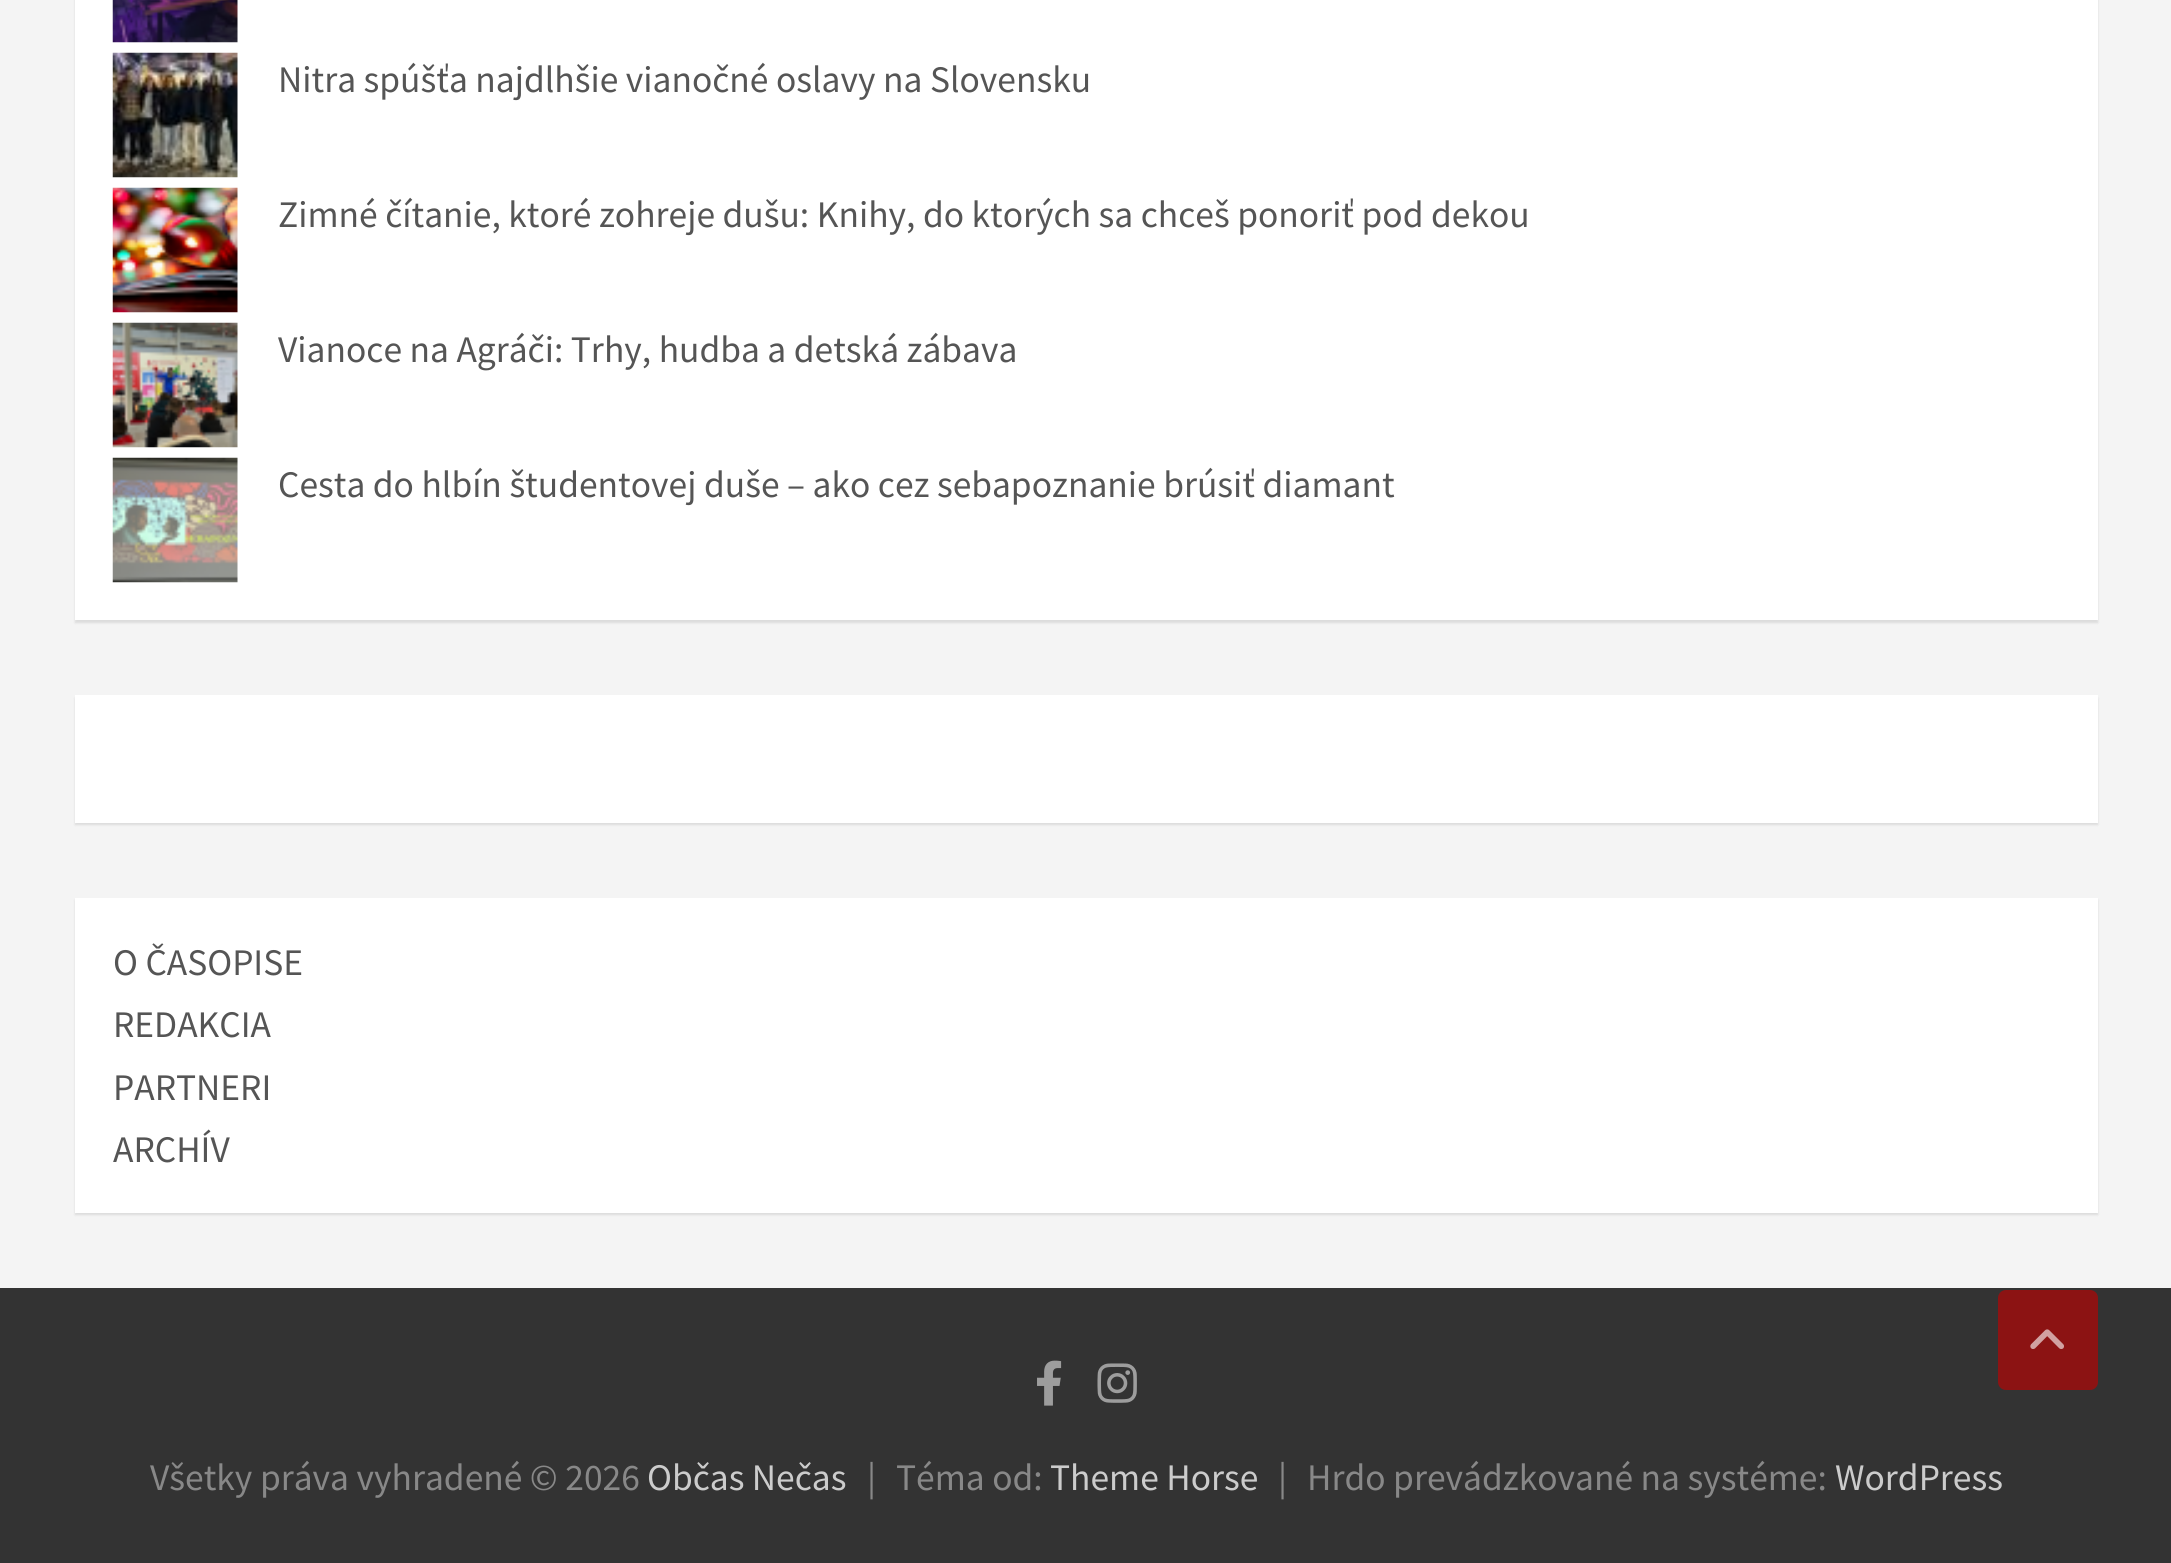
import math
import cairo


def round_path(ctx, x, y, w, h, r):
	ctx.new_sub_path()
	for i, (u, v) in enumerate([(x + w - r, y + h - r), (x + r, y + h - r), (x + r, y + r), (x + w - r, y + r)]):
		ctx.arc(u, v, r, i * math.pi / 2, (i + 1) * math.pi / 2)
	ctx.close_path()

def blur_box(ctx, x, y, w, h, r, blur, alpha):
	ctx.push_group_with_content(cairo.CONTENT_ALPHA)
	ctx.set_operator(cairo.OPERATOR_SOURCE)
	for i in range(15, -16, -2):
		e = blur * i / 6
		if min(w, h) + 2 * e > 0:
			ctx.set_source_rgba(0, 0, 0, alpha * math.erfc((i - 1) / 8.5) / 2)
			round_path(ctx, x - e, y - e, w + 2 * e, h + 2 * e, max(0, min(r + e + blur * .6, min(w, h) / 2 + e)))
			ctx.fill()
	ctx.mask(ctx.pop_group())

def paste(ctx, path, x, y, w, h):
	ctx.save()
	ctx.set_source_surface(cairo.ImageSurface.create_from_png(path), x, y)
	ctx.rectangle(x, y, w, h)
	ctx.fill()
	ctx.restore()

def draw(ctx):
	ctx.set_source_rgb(0.957, 0.957, 0.957)
	ctx.paint()
	ctx.set_source_rgb(0, 0, 0)
	blur_box(ctx, 75, -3, 2023, 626, 0, 1, 0.1)
	ctx.set_source_rgb(1, 1, 1)
	ctx.rectangle(75, 0, 2023, 620)
	ctx.fill()
	paste(ctx, 'media/1.png', 112, 0, 126, 43)
	paste(ctx, 'media/2.png', 112, 52, 126, 126)
	ctx.select_font_face('Source Sans Pro')
	ctx.set_font_size(37.5)
	ctx.set_source_rgb(0.333, 0.333, 0.333)
	ctx.move_to(278, 92)
	ctx.show_text('Nitra spúšťa najdlhšie vianočné oslavy na Slovensku')
	paste(ctx, 'media/3.png', 112, 187, 126, 126)
	ctx.move_to(278, 227)
	ctx.show_text('Zimné čítanie, ktoré zohreje dušu: Knihy, do ktorých sa chceš ponoriť pod dekou')
	paste(ctx, 'media/4.png', 112, 322, 126, 126)
	ctx.move_to(278, 362)
	ctx.show_text('Vianoce na Agráči: Trhy, hudba a detská zábava')
	paste(ctx, 'media/5.png', 112, 457, 126, 126)
	ctx.move_to(278, 497)
	ctx.show_text('Cesta do hlbín študentovej duše – ako cez sebapoznanie brúsiť diamant')
	ctx.set_source_rgb(0, 0, 0)
	blur_box(ctx, 75, 698, 2023, 127, 0, 1, 0.1)
	ctx.set_source_rgb(1, 1, 1)
	ctx.rectangle(75, 695, 2023, 128)
	ctx.fill()
	ctx.set_source_rgb(0, 0, 0)
	blur_box(ctx, 75, 900, 2023, 315, 0, 1, 0.1)
	ctx.set_source_rgb(1, 1, 1)
	ctx.rectangle(75, 898, 2023, 315)
	ctx.fill()
	ctx.set_source_rgb(0.333, 0.333, 0.333)
	for x, y, s in [
		(113, 975, 'O ČASOPISE'),
		(113, 1037, 'REDAKCIA'),
		(113, 1100, 'PARTNERI'),
		(113, 1162, 'ARCHÍV'),
	]:
		ctx.move_to(x, y)
		ctx.show_text(s)
	ctx.set_source_rgb(0.2, 0.2, 0.2)
	ctx.rectangle(0, 1288, 2171, 275)
	ctx.fill()
	ctx.set_source_rgb(0.549, 0.078, 0.078)
	round_path(ctx, 1998, 1290, 100, 100, 8)
	ctx.fill()
	paste(ctx, 'media/6.png', 2030, 1329, 34, 20)
	paste(ctx, 'media/7.png', 1037, 1360, 25, 46)
	paste(ctx, 'media/8.png', 1097, 1363, 40, 40)
	ctx.set_source_rgb(0.533, 0.533, 0.533)
	ctx.move_to(150, 1490)
	ctx.show_text('Všetky práva vyhradené © 2026')
	ctx.set_source_rgb(0.8, 0.8, 0.8)
	ctx.move_to(647, 1490)
	ctx.show_text('Občas Nečas')
	ctx.set_source_rgb(0.533, 0.533, 0.533)
	ctx.move_to(867, 1490)
	ctx.show_text('|')
	ctx.move_to(896, 1490)
	ctx.show_text('Téma od:')
	ctx.set_source_rgb(0.8, 0.8, 0.8)
	ctx.move_to(1050, 1490)
	ctx.show_text('Theme Horse')
	ctx.set_source_rgb(0.533, 0.533, 0.533)
	ctx.move_to(1278, 1490)
	ctx.show_text('|')
	ctx.move_to(1307, 1490)
	ctx.show_text('Hrdo prevádzkované na systéme:')
	ctx.set_source_rgb(0.8, 0.8, 0.8)
	ctx.move_to(1835, 1490)
	ctx.show_text('WordPress')


surface = cairo.ImageSurface(cairo.FORMAT_RGB24, 2171, 1563)
ctx = cairo.Context(surface)
options = cairo.FontOptions()
options.set_hint_metrics(cairo.HINT_METRICS_OFF)
options.set_hint_style(cairo.HINT_STYLE_NONE)
ctx.set_font_options(options)
ctx.set_miter_limit(4)
draw(ctx)
surface.write_to_png('image.png')
